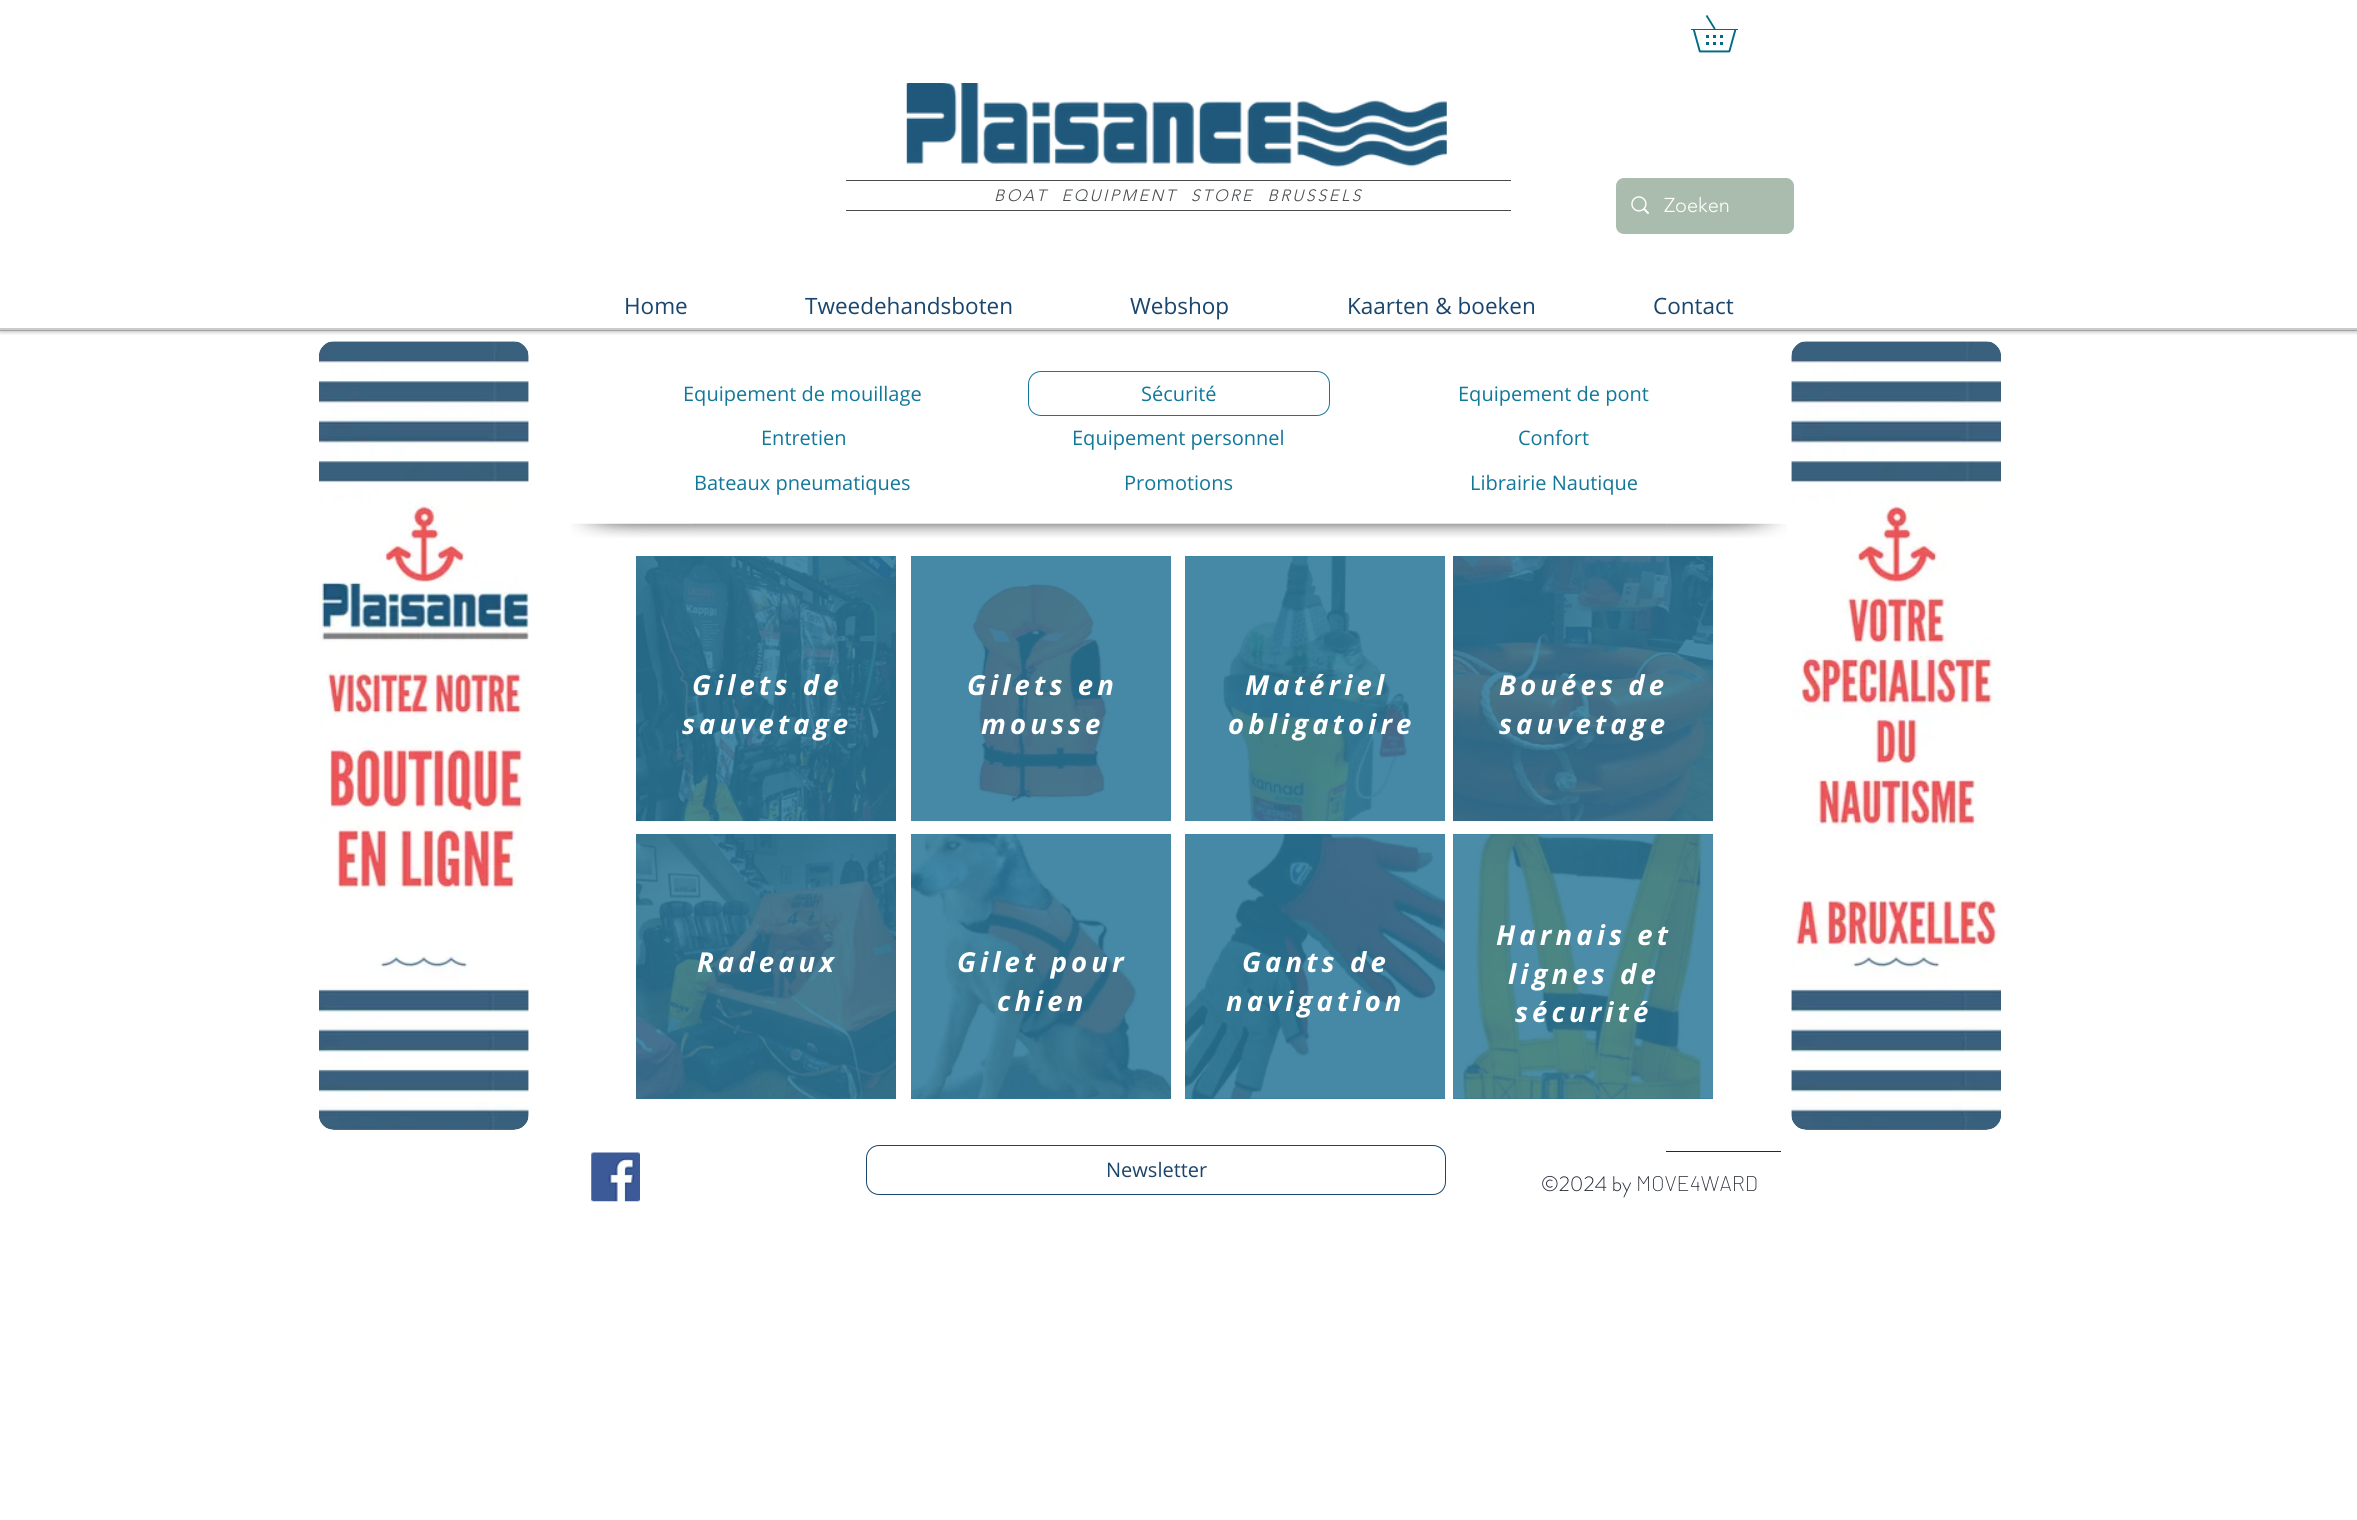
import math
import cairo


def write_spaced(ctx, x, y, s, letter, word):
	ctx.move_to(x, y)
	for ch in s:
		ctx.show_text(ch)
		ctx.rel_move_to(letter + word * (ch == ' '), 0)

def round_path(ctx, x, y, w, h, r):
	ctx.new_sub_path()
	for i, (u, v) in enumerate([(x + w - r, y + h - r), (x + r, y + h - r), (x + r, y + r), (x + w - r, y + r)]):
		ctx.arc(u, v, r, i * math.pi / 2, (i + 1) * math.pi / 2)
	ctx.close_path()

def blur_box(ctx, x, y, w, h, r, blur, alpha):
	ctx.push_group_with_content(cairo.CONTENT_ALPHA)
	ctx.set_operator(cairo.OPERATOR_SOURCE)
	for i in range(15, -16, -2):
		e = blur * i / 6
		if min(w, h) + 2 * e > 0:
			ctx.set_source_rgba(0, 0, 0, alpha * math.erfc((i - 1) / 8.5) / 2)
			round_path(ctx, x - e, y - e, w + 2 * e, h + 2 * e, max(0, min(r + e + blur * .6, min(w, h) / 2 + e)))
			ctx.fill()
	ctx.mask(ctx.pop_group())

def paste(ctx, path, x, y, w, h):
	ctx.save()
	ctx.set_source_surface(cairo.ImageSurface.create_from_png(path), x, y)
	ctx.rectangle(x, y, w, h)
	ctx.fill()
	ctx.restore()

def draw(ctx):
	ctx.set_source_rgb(1, 1, 1)
	ctx.paint()
	ctx.save()
	ctx.rectangle(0, 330, 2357, 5)
	ctx.clip()
	ctx.set_source_rgb(0, 0, 0)
	blur_box(ctx, 0, 1, 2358, 330, 0, 2.5, 0.38)
	ctx.restore()
	ctx.set_source_rgba(0.282, 0.298, 0.31, 0.29)
	ctx.rectangle(0, 328, 2357, 3)
	ctx.fill()
	paste(ctx, 'media/1.png', 1691, 15, 47, 38)
	paste(ctx, 'media/2.png', 906, 83, 541, 85)
	ctx.set_source_rgb(0.282, 0.298, 0.31)
	ctx.rectangle(846, 180, 665, 1)
	ctx.fill()
	ctx.select_font_face('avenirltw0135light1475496 Light', cairo.FONT_SLANT_ITALIC)
	ctx.set_font_size(16.25)
	write_spaced(ctx, 994, 201, 'BOAT  EQUIPMENT  STORE  BRUSSELS', 2.45, 0)
	ctx.rectangle(846, 210, 665, 1)
	ctx.fill()
	ctx.set_source_rgb(0.663, 0.737, 0.678)
	round_path(ctx, 1616, 178, 178, 56, 8)
	ctx.fill()
	paste(ctx, 'media/3.png', 1631, 196, 18, 19)
	ctx.select_font_face('avenirltw0135light1475496 Light')
	ctx.set_font_size(20)
	ctx.set_source_rgb(1, 1, 1)
	ctx.move_to(1664, 212)
	ctx.show_text('Zoeken')
	ctx.select_font_face('Open Sans')
	ctx.set_font_size(22.5)
	ctx.set_source_rgb(0.102, 0.271, 0.424)
	for x, y, s in [
		(624, 314, 'Home'),
		(805, 314, 'Tweedehandsboten'),
		(1130, 314, 'Webshop'),
		(1347, 314, 'Kaarten & boeken'),
		(1653, 314, 'Contact'),
	]:
		ctx.move_to(x, y)
		ctx.show_text(s)
	paste(ctx, 'media/4.png', 319, 341, 210, 789)
	ctx.set_font_size(20)
	ctx.set_source_rgb(0.071, 0.471, 0.604)
	ctx.move_to(683, 401)
	ctx.show_text('Equipement de mouillage')
	round_path(ctx, 1028.5, 371.5, 301, 44, 12.5)
	ctx.set_line_width(1)
	ctx.stroke()
	ctx.move_to(1141, 401)
	ctx.show_text('Sécurité')
	ctx.move_to(1458, 401)
	ctx.show_text('Equipement de pont')
	paste(ctx, 'media/5.png', 1791, 341, 210, 789)
	for x, y, s in [
		(761, 445, 'Entretien'),
		(1072, 445, 'Equipement personnel'),
		(1518, 445, 'Confort'),
		(694, 490, 'Bateaux pneumatiques'),
		(1124, 490, 'Promotions'),
		(1470, 490, 'Librairie Nautique'),
	]:
		ctx.move_to(x, y)
		ctx.show_text(s)
	paste(ctx, 'media/7.png', 691, 523, 976, 15)
	paste(ctx, 'media/6.png', 571, 523, 121, 15)
	paste(ctx, 'media/8.png', 1666, 523, 121, 15)
	ctx.set_source_rgb(0.169, 0.471, 0.604)
	ctx.rectangle(636, 556, 260, 265)
	ctx.fill()
	paste(ctx, 'media/9.png', 636, 556, 260, 266)
	ctx.select_font_face('Open Sans', cairo.FONT_SLANT_ITALIC, cairo.FONT_WEIGHT_BOLD)
	ctx.set_font_size(27.5)
	ctx.set_source_rgb(1, 1, 1)
	write_spaced(ctx, 692, 695, 'Gilets de', 4.1, 0)
	write_spaced(ctx, 682, 734, 'sauvetage', 4.1, 0)
	ctx.set_source_rgb(0.169, 0.471, 0.604)
	ctx.rectangle(911, 556, 260, 265)
	ctx.fill()
	paste(ctx, 'media/10.png', 911, 556, 260, 265)
	ctx.set_source_rgb(1, 1, 1)
	write_spaced(ctx, 967, 695, 'Gilets en', 4.1, 0)
	write_spaced(ctx, 981, 734, 'mousse', 4.1, 0)
	ctx.set_source_rgb(0.169, 0.471, 0.604)
	ctx.rectangle(1185, 556, 260, 265)
	ctx.fill()
	paste(ctx, 'media/11.png', 1185, 556, 260, 266)
	ctx.set_source_rgb(1, 1, 1)
	write_spaced(ctx, 1245, 695, 'Matériel', 4.1, 0)
	write_spaced(ctx, 1228, 734, 'obligatoire', 4.1, 0)
	ctx.set_source_rgb(0.169, 0.471, 0.604)
	ctx.rectangle(1453, 556, 260, 265)
	ctx.fill()
	paste(ctx, 'media/12.png', 1453, 556, 260, 266)
	ctx.set_source_rgb(1, 1, 1)
	write_spaced(ctx, 1499, 695, 'Bouées de', 4.1, 0)
	write_spaced(ctx, 1499, 734, 'sauvetage', 4.1, 0)
	ctx.set_source_rgb(0.169, 0.471, 0.604)
	ctx.rectangle(636, 834, 260, 265)
	ctx.fill()
	paste(ctx, 'media/13.png', 636, 834, 260, 265)
	ctx.set_source_rgb(1, 1, 1)
	write_spaced(ctx, 697, 972, 'Radeaux', 4.1, 0)
	ctx.set_source_rgb(0.169, 0.471, 0.604)
	ctx.rectangle(911, 834, 260, 265)
	ctx.fill()
	paste(ctx, 'media/14.png', 911, 834, 260, 265)
	ctx.set_source_rgb(1, 1, 1)
	write_spaced(ctx, 957, 972, 'Gilet pour', 4.1, 0)
	write_spaced(ctx, 997, 1011, 'chien', 4.1, 0)
	ctx.set_source_rgb(0.169, 0.471, 0.604)
	ctx.rectangle(1185, 834, 260, 265)
	ctx.fill()
	paste(ctx, 'media/15.png', 1185, 834, 260, 265)
	ctx.set_source_rgb(1, 1, 1)
	write_spaced(ctx, 1242, 972, 'Gants de', 4.1, 0)
	write_spaced(ctx, 1226, 1011, 'navigation', 4.1, 0)
	ctx.set_source_rgb(0.169, 0.471, 0.604)
	ctx.rectangle(1453, 834, 260, 265)
	ctx.fill()
	paste(ctx, 'media/16.png', 1453, 834, 260, 265)
	ctx.set_source_rgb(1, 1, 1)
	for x, y, s in [
		(1496, 945, 'Harnais et'),
		(1508, 984, 'lignes de'),
		(1515, 1022, 'sécurité'),
	]:
		write_spaced(ctx, x, y, s, 4.1, 0)
	ctx.set_source_rgb(0.141, 0.165, 0.208)
	ctx.rectangle(1666, 1151, 115, 1)
	ctx.fill()
	paste(ctx, 'media/17.png', 591, 1152, 49, 50)
	round_path(ctx, 866.5, 1145.5, 579, 49, 12.5)
	ctx.set_source_rgb(0.102, 0.271, 0.424)
	ctx.stroke()
	ctx.select_font_face('Open Sans')
	ctx.set_font_size(20)
	ctx.move_to(1106, 1177)
	ctx.show_text('Newsletter')
	ctx.select_font_face('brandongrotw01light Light')
	ctx.set_font_size(21.25)
	ctx.set_source_rgb(0.141, 0.165, 0.208)
	ctx.move_to(1541, 1191)
	ctx.show_text('©2024 by')
	ctx.select_font_face('Barlow ExtraLight')
	ctx.move_to(1636, 1191)
	ctx.show_text('MOVE4WARD')


surface = cairo.ImageSurface(cairo.FORMAT_RGB24, 2357, 1520)
ctx = cairo.Context(surface)
options = cairo.FontOptions()
options.set_hint_metrics(cairo.HINT_METRICS_OFF)
options.set_hint_style(cairo.HINT_STYLE_NONE)
ctx.set_font_options(options)
ctx.set_miter_limit(4)
draw(ctx)
surface.write_to_png('image.png')
